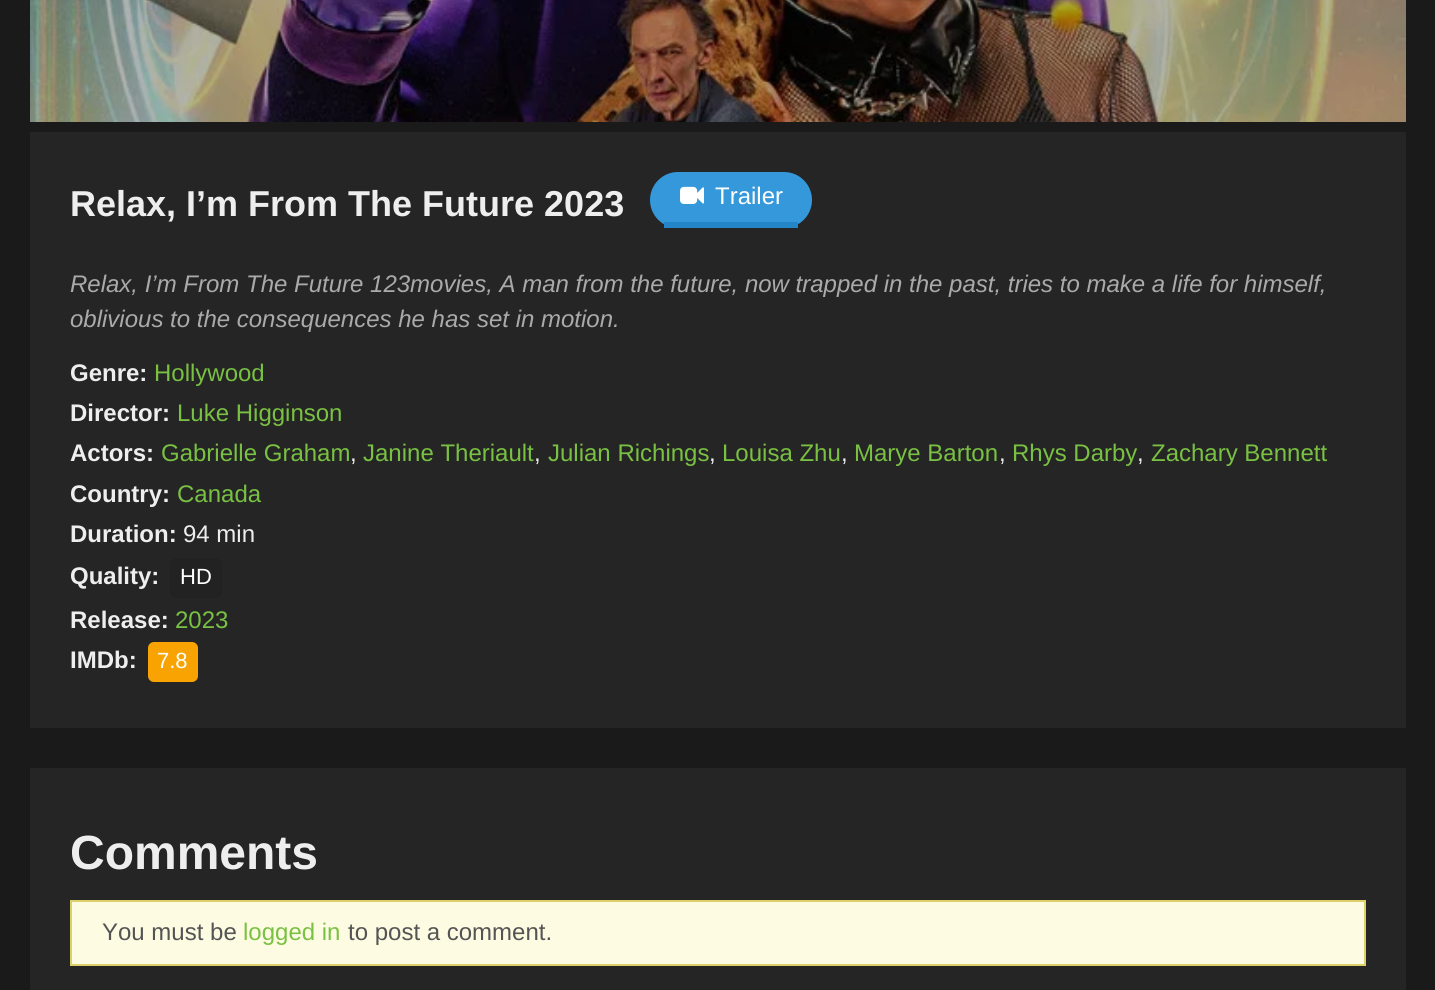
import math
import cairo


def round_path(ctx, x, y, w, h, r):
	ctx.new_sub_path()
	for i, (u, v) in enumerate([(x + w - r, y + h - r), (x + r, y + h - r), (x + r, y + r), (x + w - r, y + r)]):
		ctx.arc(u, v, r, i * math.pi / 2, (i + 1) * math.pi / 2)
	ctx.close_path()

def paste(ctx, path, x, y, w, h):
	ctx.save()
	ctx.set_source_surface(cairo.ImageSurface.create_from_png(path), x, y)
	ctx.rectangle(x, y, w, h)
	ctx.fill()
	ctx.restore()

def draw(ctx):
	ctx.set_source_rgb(0.102, 0.102, 0.102)
	ctx.paint()
	paste(ctx, 'media/1.png', 30, 0, 1376, 122)
	ctx.set_source_rgb(0.145, 0.145, 0.145)
	ctx.rectangle(30, 132, 1376, 596)
	ctx.fill()
	ctx.select_font_face('Liberation Sans', cairo.FONT_SLANT_NORMAL, cairo.FONT_WEIGHT_BOLD)
	ctx.set_font_size(36)
	ctx.set_source_rgb(0.933, 0.933, 0.933)
	ctx.move_to(70, 216)
	ctx.show_text('Relax, I’m From The Future 2023')
	ctx.set_source_rgb(0.208, 0.596, 0.859)
	round_path(ctx, 650, 172, 162, 56, 28)
	ctx.fill()
	ctx.set_source_rgb(0.141, 0.525, 0.784)
	ctx.rectangle(664, 222, 134, 6)
	ctx.fill()
	paste(ctx, 'media/2.png', 680, 186, 24, 18)
	ctx.select_font_face('Liberation Sans')
	ctx.set_font_size(24)
	ctx.set_source_rgb(1, 1, 1)
	ctx.move_to(715, 204)
	ctx.show_text('Trailer')
	ctx.select_font_face('Liberation Sans', cairo.FONT_SLANT_ITALIC)
	ctx.set_source_rgb(0.667, 0.667, 0.667)
	ctx.move_to(70, 292)
	ctx.show_text('Relax, I’m From The Future 123movies, A man from the future, now trapped in the past, tries to make a life for himself,')
	ctx.move_to(70, 327)
	ctx.show_text('oblivious to the consequences he has set in motion.')
	ctx.select_font_face('Liberation Sans', cairo.FONT_SLANT_NORMAL, cairo.FONT_WEIGHT_BOLD)
	ctx.set_source_rgb(0.933, 0.933, 0.933)
	ctx.move_to(70, 381)
	ctx.show_text('Genre:')
	ctx.select_font_face('Liberation Sans')
	ctx.set_source_rgb(0.475, 0.757, 0.259)
	ctx.move_to(154, 381)
	ctx.show_text('Hollywood')
	ctx.select_font_face('Liberation Sans', cairo.FONT_SLANT_NORMAL, cairo.FONT_WEIGHT_BOLD)
	ctx.set_source_rgb(0.933, 0.933, 0.933)
	ctx.move_to(70, 421)
	ctx.show_text('Director:')
	ctx.select_font_face('Liberation Sans')
	ctx.set_source_rgb(0.475, 0.757, 0.259)
	ctx.move_to(177, 421)
	ctx.show_text('Luke Higginson')
	ctx.select_font_face('Liberation Sans', cairo.FONT_SLANT_NORMAL, cairo.FONT_WEIGHT_BOLD)
	ctx.set_source_rgb(0.933, 0.933, 0.933)
	ctx.move_to(70, 461)
	ctx.show_text('Actors:')
	ctx.select_font_face('Liberation Sans')
	ctx.set_source_rgb(0.475, 0.757, 0.259)
	ctx.move_to(161, 461)
	ctx.show_text('Gabrielle Graham')
	ctx.set_source_rgb(0.933, 0.933, 0.933)
	ctx.move_to(350, 461)
	ctx.show_text(',')
	ctx.set_source_rgb(0.475, 0.757, 0.259)
	ctx.move_to(363, 461)
	ctx.show_text('Janine Theriault')
	ctx.set_source_rgb(0.933, 0.933, 0.933)
	ctx.move_to(534, 461)
	ctx.show_text(',')
	ctx.set_source_rgb(0.475, 0.757, 0.259)
	ctx.move_to(548, 461)
	ctx.show_text('Julian Richings')
	ctx.set_source_rgb(0.933, 0.933, 0.933)
	ctx.move_to(709, 461)
	ctx.show_text(',')
	ctx.set_source_rgb(0.475, 0.757, 0.259)
	ctx.move_to(722, 461)
	ctx.show_text('Louisa Zhu')
	ctx.set_source_rgb(0.933, 0.933, 0.933)
	ctx.move_to(841, 461)
	ctx.show_text(',')
	ctx.set_source_rgb(0.475, 0.757, 0.259)
	ctx.move_to(854, 461)
	ctx.show_text('Marye Barton')
	ctx.set_source_rgb(0.933, 0.933, 0.933)
	ctx.move_to(999, 461)
	ctx.show_text(',')
	ctx.set_source_rgb(0.475, 0.757, 0.259)
	ctx.move_to(1012, 461)
	ctx.show_text('Rhys Darby')
	ctx.set_source_rgb(0.933, 0.933, 0.933)
	ctx.move_to(1137, 461)
	ctx.show_text(',')
	ctx.set_source_rgb(0.475, 0.757, 0.259)
	ctx.move_to(1151, 461)
	ctx.show_text('Zachary Bennett')
	ctx.select_font_face('Liberation Sans', cairo.FONT_SLANT_NORMAL, cairo.FONT_WEIGHT_BOLD)
	ctx.set_source_rgb(0.933, 0.933, 0.933)
	ctx.move_to(70, 502)
	ctx.show_text('Country:')
	ctx.select_font_face('Liberation Sans')
	ctx.set_source_rgb(0.475, 0.757, 0.259)
	ctx.move_to(177, 502)
	ctx.show_text('Canada')
	ctx.select_font_face('Liberation Sans', cairo.FONT_SLANT_NORMAL, cairo.FONT_WEIGHT_BOLD)
	ctx.set_source_rgb(0.933, 0.933, 0.933)
	ctx.move_to(70, 542)
	ctx.show_text('Duration:')
	ctx.select_font_face('Liberation Sans')
	ctx.move_to(183, 542)
	ctx.show_text('94 min')
	ctx.select_font_face('Liberation Sans', cairo.FONT_SLANT_NORMAL, cairo.FONT_WEIGHT_BOLD)
	ctx.move_to(70, 584)
	ctx.show_text('Quality:')
	ctx.set_source_rgb(0.133, 0.133, 0.133)
	round_path(ctx, 170, 558, 52, 40, 6)
	ctx.fill()
	ctx.select_font_face('Liberation Sans')
	ctx.set_font_size(22)
	ctx.set_source_rgb(1, 1, 1)
	ctx.move_to(180, 584)
	ctx.show_text('HD')
	ctx.select_font_face('Liberation Sans', cairo.FONT_SLANT_NORMAL, cairo.FONT_WEIGHT_BOLD)
	ctx.set_font_size(24)
	ctx.set_source_rgb(0.933, 0.933, 0.933)
	ctx.move_to(70, 628)
	ctx.show_text('Release:')
	ctx.select_font_face('Liberation Sans')
	ctx.set_source_rgb(0.475, 0.757, 0.259)
	ctx.move_to(175, 628)
	ctx.show_text('2023')
	ctx.select_font_face('Liberation Sans', cairo.FONT_SLANT_NORMAL, cairo.FONT_WEIGHT_BOLD)
	ctx.set_source_rgb(0.933, 0.933, 0.933)
	ctx.move_to(70, 668)
	ctx.show_text('IMDb:')
	ctx.set_source_rgb(0.976, 0.639, 0.008)
	round_path(ctx, 148, 642, 50, 40, 6)
	ctx.fill()
	ctx.select_font_face('Liberation Sans')
	ctx.set_font_size(22)
	ctx.set_source_rgb(1, 1, 1)
	ctx.move_to(157, 668)
	ctx.show_text('7.8')
	ctx.set_source_rgb(0.145, 0.145, 0.145)
	ctx.rectangle(30, 768, 1376, 222)
	ctx.fill()
	ctx.select_font_face('Liberation Sans', cairo.FONT_SLANT_NORMAL, cairo.FONT_WEIGHT_BOLD)
	ctx.set_font_size(48)
	ctx.set_source_rgb(0.933, 0.933, 0.933)
	ctx.move_to(70, 869)
	ctx.show_text('Comments')
	ctx.set_source_rgb(0.992, 0.988, 0.886)
	ctx.rectangle(71, 901, 1294, 64)
	ctx.fill_preserve()
	ctx.set_source_rgb(0.863, 0.816, 0.416)
	ctx.stroke()
	ctx.select_font_face('Liberation Sans')
	ctx.set_font_size(24)
	ctx.set_source_rgb(0.329, 0.329, 0.329)
	ctx.move_to(102, 940)
	ctx.show_text('You must be')
	ctx.set_source_rgb(0.475, 0.757, 0.259)
	ctx.move_to(243, 940)
	ctx.show_text('logged in')
	ctx.set_source_rgb(0.329, 0.329, 0.329)
	ctx.move_to(348, 940)
	ctx.show_text('to post a comment.')


surface = cairo.ImageSurface(cairo.FORMAT_RGB24, 1435, 990)
ctx = cairo.Context(surface)
options = cairo.FontOptions()
options.set_hint_metrics(cairo.HINT_METRICS_OFF)
options.set_hint_style(cairo.HINT_STYLE_NONE)
ctx.set_font_options(options)
ctx.set_miter_limit(4)
draw(ctx)
surface.write_to_png('image.png')
